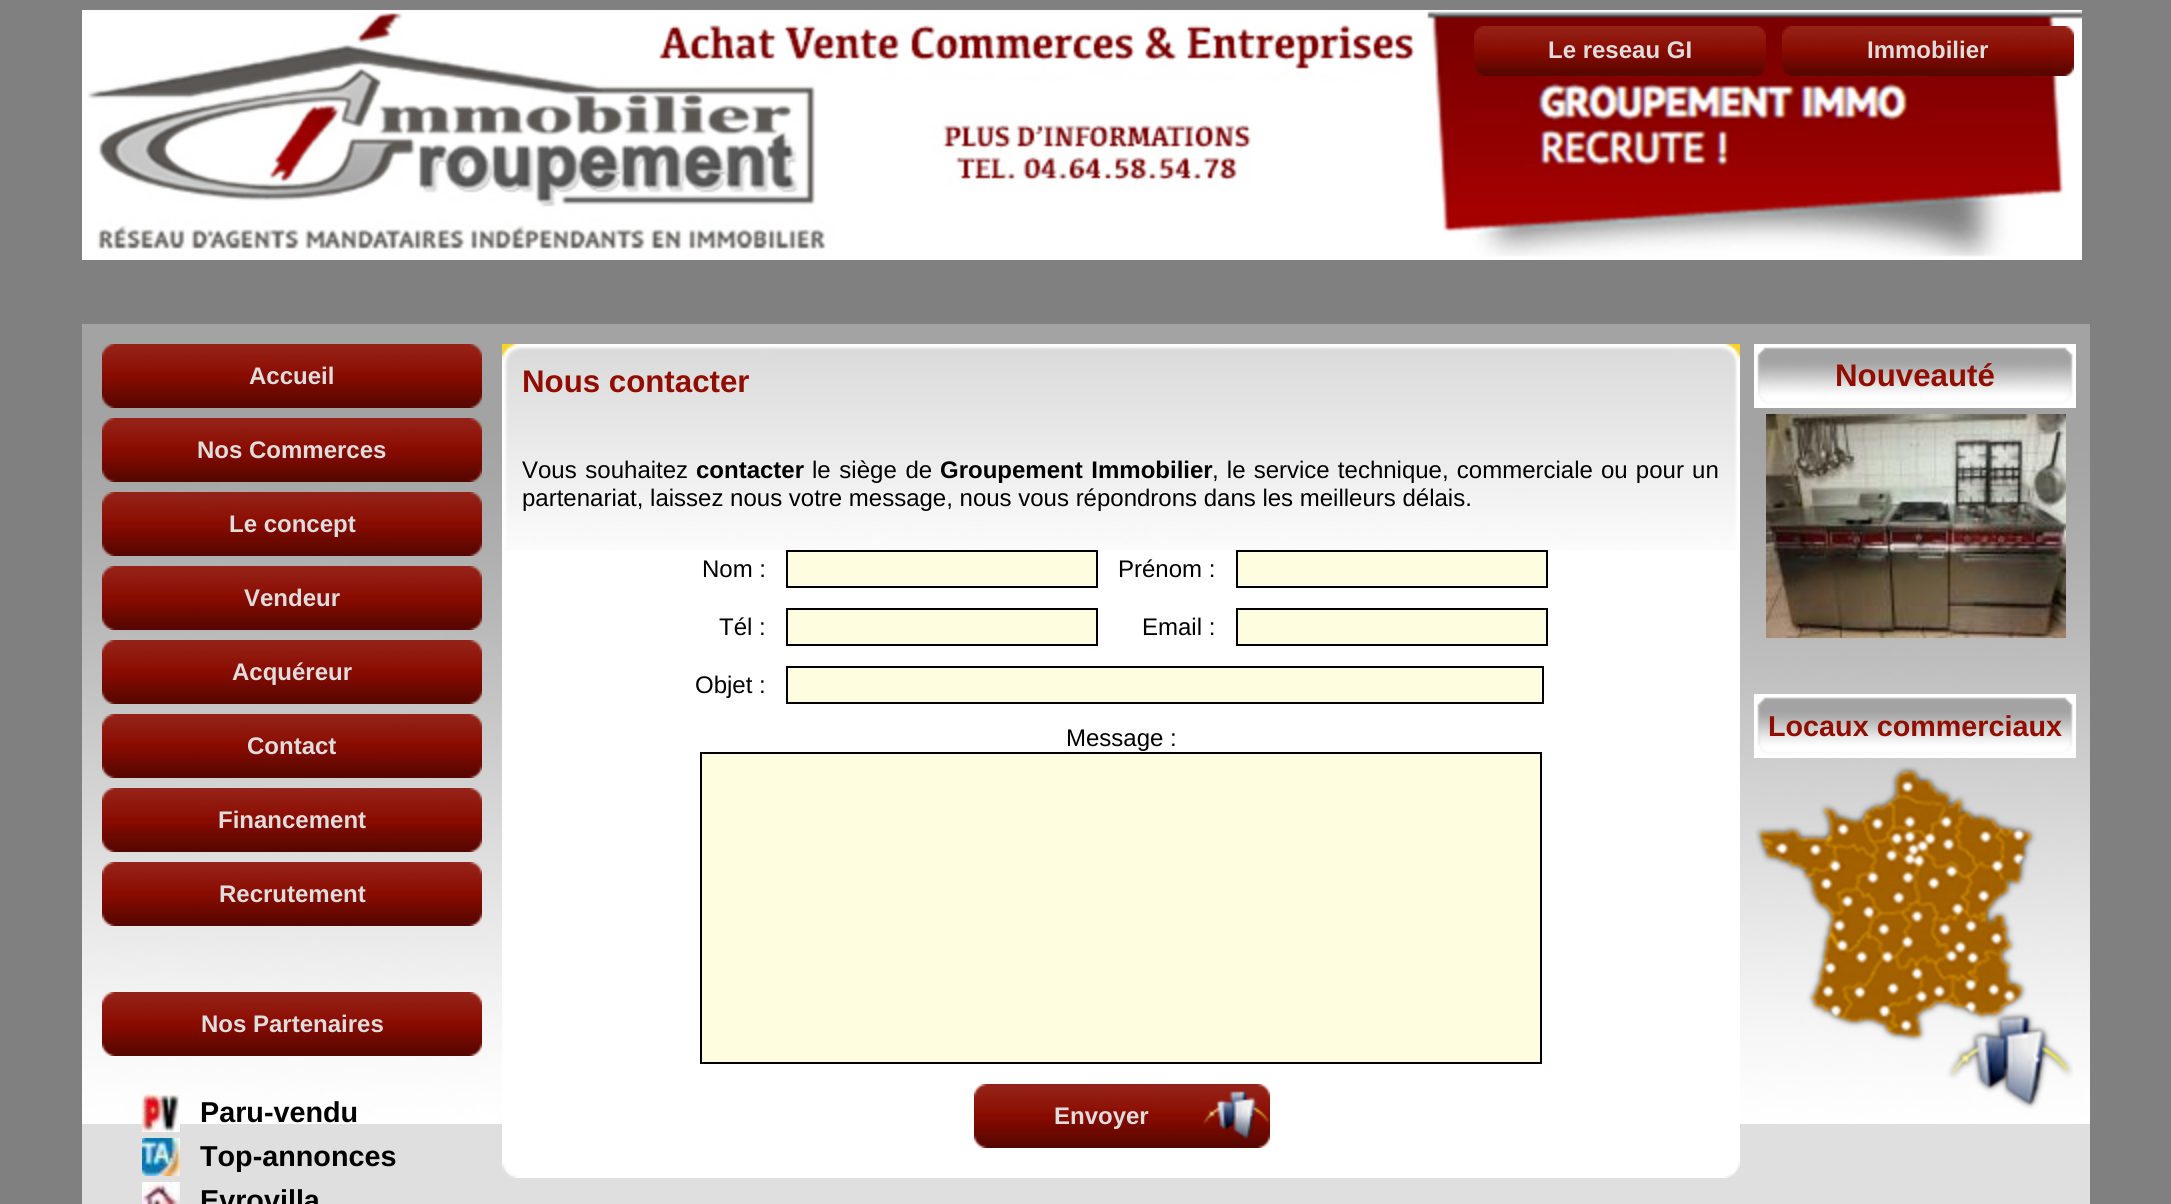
import math
import cairo


def write_spaced(ctx, x, y, s, letter, word):
	ctx.move_to(x, y)
	for ch in s:
		ctx.show_text(ch)
		ctx.rel_move_to(letter + word * (ch == ' '), 0)

def paste(ctx, path, x, y, w, h):
	ctx.save()
	ctx.set_source_surface(cairo.ImageSurface.create_from_png(path), x, y)
	ctx.rectangle(x, y, w, h)
	ctx.fill()
	ctx.restore()

def draw(ctx):
	ctx.set_source_rgb(0.506, 0.502, 0.502)
	ctx.paint()
	paste(ctx, 'media/1.png', 82, 10, 2000, 250)
	paste(ctx, 'media/2.png', 1474, 26, 292, 50)
	ctx.select_font_face('Liberation Sans', cairo.FONT_SLANT_NORMAL, cairo.FONT_WEIGHT_BOLD)
	ctx.set_font_size(24)
	ctx.set_source_rgb(0.867, 0.867, 0.867)
	ctx.move_to(1548, 58)
	ctx.show_text('Le reseau GI')
	paste(ctx, 'media/3.png', 1782, 26, 292, 50)
	ctx.move_to(1867, 58)
	ctx.show_text('Immobilier')
	ctx.set_source_rgb(0.875, 0.875, 0.875)
	ctx.rectangle(82, 1124, 2008, 80)
	ctx.fill()
	paste(ctx, 'media/4.png', 82, 324, 2008, 800)
	paste(ctx, 'media/5.png', 102, 344, 380, 64)
	ctx.set_source_rgb(0.867, 0.867, 0.867)
	ctx.move_to(249, 384)
	ctx.show_text('Accueil')
	paste(ctx, 'media/6.png', 102, 418, 380, 64)
	ctx.move_to(197, 458)
	ctx.show_text('Nos Commerces')
	paste(ctx, 'media/7.png', 102, 492, 380, 64)
	ctx.move_to(229, 532)
	ctx.show_text('Le concept')
	paste(ctx, 'media/8.png', 102, 566, 380, 64)
	ctx.move_to(244, 606)
	ctx.show_text('Vendeur')
	paste(ctx, 'media/9.png', 102, 640, 380, 64)
	ctx.move_to(232, 680)
	ctx.show_text('Acquéreur')
	paste(ctx, 'media/10.png', 102, 714, 380, 64)
	ctx.move_to(247, 754)
	ctx.show_text('Contact')
	paste(ctx, 'media/11.png', 102, 788, 380, 64)
	ctx.move_to(218, 828)
	ctx.show_text('Financement')
	paste(ctx, 'media/12.png', 102, 862, 380, 64)
	ctx.move_to(219, 902)
	ctx.show_text('Recrutement')
	paste(ctx, 'media/13.png', 102, 992, 380, 64)
	ctx.move_to(201, 1032)
	ctx.show_text('Nos Partenaires')
	paste(ctx, 'media/14.png', 142, 1094, 38, 38)
	ctx.set_font_size(28.75)
	ctx.set_source_rgb(0, 0, 0)
	ctx.move_to(200, 1122)
	ctx.show_text('Paru-vendu')
	paste(ctx, 'media/15.png', 142, 1138, 38, 38)
	ctx.move_to(200, 1166)
	ctx.show_text('Top-annonces')
	paste(ctx, 'media/16.png', 142, 1182, 38, 22)
	ctx.move_to(200, 1210)
	ctx.show_text('Evrovilla')
	paste(ctx, 'media/17.png', 502, 344, 1238, 20)
	ctx.set_source_rgb(1, 1, 1)
	ctx.rectangle(502, 364, 1238, 794)
	ctx.fill()
	paste(ctx, 'media/18.png', 504, 364, 1234, 186)
	ctx.set_font_size(31.25)
	ctx.set_source_rgb(0.565, 0.051, 0)
	ctx.move_to(522, 392)
	ctx.show_text('Nous contacter')
	ctx.select_font_face('Liberation Sans')
	ctx.set_font_size(24)
	ctx.set_source_rgb(0, 0, 0)
	write_spaced(ctx, 522, 478, 'Vous souhaitez', 0, 2)
	ctx.select_font_face('Liberation Sans', cairo.FONT_SLANT_NORMAL, cairo.FONT_WEIGHT_BOLD)
	ctx.move_to(696, 478)
	ctx.show_text('contacter')
	ctx.select_font_face('Liberation Sans')
	write_spaced(ctx, 812, 478, 'le siège de', 0, 2)
	ctx.select_font_face('Liberation Sans', cairo.FONT_SLANT_NORMAL, cairo.FONT_WEIGHT_BOLD)
	write_spaced(ctx, 940, 478, 'Groupement Immobilier', 0, 2)
	ctx.select_font_face('Liberation Sans')
	write_spaced(ctx, 1212, 478, ', le service technique, commerciale ou pour un', 0, 1.5)
	ctx.move_to(522, 506)
	ctx.show_text('partenariat, laissez nous votre message, nous vous répondrons dans les meilleurs délais.')
	ctx.move_to(702, 577)
	ctx.show_text('Nom :')
	ctx.set_source_rgb(1, 0.992, 0.875)
	ctx.rectangle(787, 551, 310, 36)
	ctx.fill_preserve()
	ctx.set_source_rgb(0, 0, 0)
	ctx.stroke()
	ctx.move_to(1118, 577)
	ctx.show_text('Prénom :')
	ctx.set_source_rgb(1, 0.992, 0.875)
	ctx.rectangle(1237, 551, 310, 36)
	ctx.fill_preserve()
	ctx.set_source_rgb(0, 0, 0)
	ctx.stroke()
	ctx.move_to(719, 635)
	ctx.show_text('Tél :')
	ctx.set_source_rgb(1, 0.992, 0.875)
	ctx.rectangle(787, 609, 310, 36)
	ctx.fill_preserve()
	ctx.set_source_rgb(0, 0, 0)
	ctx.stroke()
	ctx.move_to(1142, 635)
	ctx.show_text('Email :')
	ctx.set_source_rgb(1, 0.992, 0.875)
	ctx.rectangle(1237, 609, 310, 36)
	ctx.fill_preserve()
	ctx.set_source_rgb(0, 0, 0)
	ctx.stroke()
	ctx.move_to(695, 693)
	ctx.show_text('Objet :')
	ctx.set_source_rgb(1, 0.992, 0.875)
	ctx.rectangle(787, 667, 756, 36)
	ctx.fill_preserve()
	ctx.set_source_rgb(0, 0, 0)
	ctx.stroke()
	ctx.move_to(1066, 746)
	ctx.show_text('Message :')
	ctx.set_source_rgb(1, 0.992, 0.875)
	ctx.rectangle(701, 753, 840, 310)
	ctx.fill_preserve()
	ctx.set_source_rgb(0, 0, 0)
	ctx.stroke()
	paste(ctx, 'media/19.png', 974, 1084, 296, 64)
	ctx.select_font_face('Liberation Sans', cairo.FONT_SLANT_NORMAL, cairo.FONT_WEIGHT_BOLD)
	ctx.set_source_rgb(0.867, 0.867, 0.867)
	ctx.move_to(1054, 1124)
	ctx.show_text('Envoyer')
	paste(ctx, 'media/20.png', 502, 1158, 1238, 20)
	paste(ctx, 'media/21.png', 1754, 344, 322, 64)
	ctx.set_font_size(31.25)
	ctx.set_source_rgb(0.565, 0.051, 0)
	ctx.move_to(1835, 386)
	ctx.show_text('Nouveauté')
	paste(ctx, 'media/22.png', 1766, 414, 300, 224)
	paste(ctx, 'media/21.png', 1754, 694, 322, 64)
	ctx.set_font_size(28.75)
	ctx.move_to(1768, 736)
	ctx.show_text('Locaux commerciaux')
	paste(ctx, 'media/23.png', 1755, 766, 318, 343)


surface = cairo.ImageSurface(cairo.FORMAT_RGB24, 2171, 1204)
ctx = cairo.Context(surface)
options = cairo.FontOptions()
options.set_hint_metrics(cairo.HINT_METRICS_OFF)
options.set_hint_style(cairo.HINT_STYLE_NONE)
ctx.set_font_options(options)
ctx.set_miter_limit(4)
draw(ctx)
surface.write_to_png('image.png')
